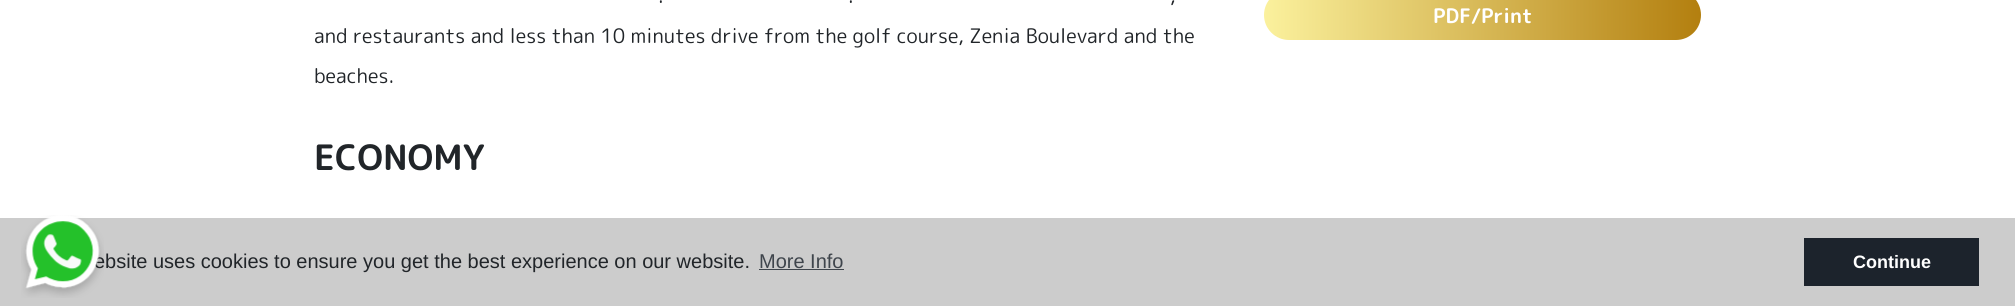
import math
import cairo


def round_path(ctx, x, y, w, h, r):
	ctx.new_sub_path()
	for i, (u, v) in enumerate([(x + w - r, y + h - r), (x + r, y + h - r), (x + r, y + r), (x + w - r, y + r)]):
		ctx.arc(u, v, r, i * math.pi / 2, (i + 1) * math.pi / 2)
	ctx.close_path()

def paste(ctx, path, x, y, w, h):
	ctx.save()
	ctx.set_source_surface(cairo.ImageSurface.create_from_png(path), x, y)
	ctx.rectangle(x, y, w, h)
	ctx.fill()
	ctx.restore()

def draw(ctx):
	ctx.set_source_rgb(1, 1, 1)
	ctx.paint()
	ctx.select_font_face('Rounded Mplus 1c')
	ctx.set_font_size(20)
	ctx.set_source_rgb(0.129, 0.145, 0.161)
	for x, y, s in [
		(658, 3, '.'),
		(848, 3, '.'),
		(1170, 3, ','),
		(314, 43, 'and restaurants and less than 10 minutes drive from the golf course, Zenia Boulevard and the'),
		(314, 83, 'beaches.'),
	]:
		ctx.move_to(x, y)
		ctx.show_text(s)
	ctx.select_font_face('Rounded Mplus 1c Bold', cairo.FONT_SLANT_NORMAL, cairo.FONT_WEIGHT_BOLD)
	ctx.set_font_size(35)
	ctx.move_to(314, 170)
	ctx.show_text('ECONOMY')
	gradient = cairo.LinearGradient(1264, 15, 1701, 15)
	gradient.add_color_stop_rgba(0, 0.984, 0.945, 0.616, 1)
	gradient.add_color_stop_rgba(1, 0.702, 0.498, 0.059, 1)
	ctx.set_source(gradient)
	round_path(ctx, 1264, -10, 437, 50, 25)
	ctx.fill()
	ctx.set_font_size(20)
	ctx.set_source_rgb(1, 1, 1)
	ctx.move_to(1433, 23)
	ctx.show_text('PDF/Print')
	ctx.set_source_rgb(0.8, 0.8, 0.8)
	ctx.rectangle(0, 218, 2015, 88)
	ctx.fill()
	ctx.select_font_face('Liberation Sans')
	ctx.set_source_rgb(0.129, 0.145, 0.161)
	ctx.move_to(94, 268)
	ctx.show_text('ebsite uses cookies to ensure you get the best experience on our website.')
	paste(ctx, 'media/1.png', 21, 215, 83, 83)
	ctx.set_source_rgb(0.247, 0.271, 0.298)
	ctx.move_to(759, 268)
	ctx.show_text('More Info')
	ctx.rectangle(759, 269, 85, 1)
	ctx.fill()
	ctx.set_source_rgb(0.11, 0.137, 0.173)
	ctx.rectangle(1804, 238, 175, 48)
	ctx.fill()
	ctx.select_font_face('Liberation Sans', cairo.FONT_SLANT_NORMAL, cairo.FONT_WEIGHT_BOLD)
	ctx.set_font_size(18)
	ctx.set_source_rgb(1, 1, 1)
	ctx.move_to(1853, 268)
	ctx.show_text('Continue')


surface = cairo.ImageSurface(cairo.FORMAT_RGB24, 2015, 306)
ctx = cairo.Context(surface)
options = cairo.FontOptions()
options.set_hint_metrics(cairo.HINT_METRICS_OFF)
options.set_hint_style(cairo.HINT_STYLE_NONE)
ctx.set_font_options(options)
ctx.set_miter_limit(4)
draw(ctx)
surface.write_to_png('image.png')
